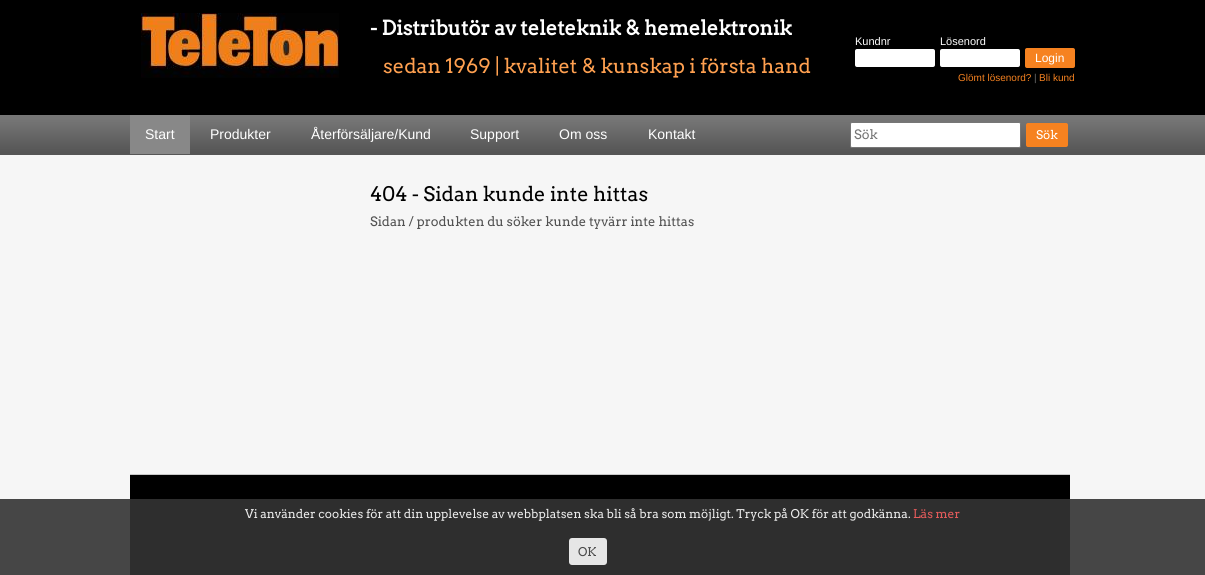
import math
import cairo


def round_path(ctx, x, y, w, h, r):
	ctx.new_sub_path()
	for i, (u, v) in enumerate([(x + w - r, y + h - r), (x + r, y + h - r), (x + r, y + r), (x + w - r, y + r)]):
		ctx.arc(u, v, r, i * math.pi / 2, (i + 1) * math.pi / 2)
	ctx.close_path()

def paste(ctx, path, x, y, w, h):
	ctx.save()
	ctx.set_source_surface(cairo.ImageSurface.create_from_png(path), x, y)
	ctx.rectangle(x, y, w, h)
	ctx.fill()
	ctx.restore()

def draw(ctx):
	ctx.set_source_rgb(0.961, 0.961, 0.961)
	ctx.paint()
	paste(ctx, 'media/1.png', 0, 0, 1205, 155)
	paste(ctx, 'media/2.png', 141, 13, 198, 65)
	ctx.select_font_face('Arvo', cairo.FONT_SLANT_NORMAL, cairo.FONT_WEIGHT_BOLD)
	ctx.set_font_size(20)
	ctx.set_source_rgb(1, 1, 1)
	ctx.move_to(370, 35)
	ctx.show_text('- Distributör av teleteknik & hemelektronik')
	ctx.select_font_face('Arvo')
	ctx.set_source_rgb(1, 0.627, 0.314)
	ctx.move_to(383, 73)
	ctx.show_text('sedan 1969 | kvalitet & kunskap i första hand')
	ctx.select_font_face('Liberation Sans')
	ctx.set_font_size(11)
	ctx.set_source_rgb(1, 1, 1)
	ctx.move_to(855, 45)
	ctx.show_text('Kundnr')
	round_path(ctx, 855, 49, 80, 18, 2)
	ctx.fill()
	ctx.move_to(940, 45)
	ctx.show_text('Lösenord')
	round_path(ctx, 940, 49, 80, 18, 2)
	ctx.fill()
	ctx.set_source_rgb(0.961, 0.51, 0.125)
	round_path(ctx, 1025, 48, 50, 20, 2)
	ctx.fill()
	ctx.set_font_size(12)
	ctx.set_source_rgb(1, 1, 1)
	ctx.move_to(1035, 62)
	ctx.show_text('Login')
	ctx.set_font_size(10)
	ctx.set_source_rgb(0.961, 0.51, 0.125)
	ctx.move_to(958, 81)
	ctx.show_text('Glömt lösenord?')
	ctx.set_source_rgb(0.424, 0.424, 0.424)
	ctx.move_to(1034, 81)
	ctx.show_text('|')
	ctx.set_source_rgb(0.961, 0.51, 0.125)
	ctx.move_to(1039, 81)
	ctx.show_text('Bli kund')
	ctx.set_source_rgb(0, 0, 0)
	ctx.rectangle(130, 475, 940, 100)
	ctx.fill()
	ctx.set_source_rgba(0.2, 0.2, 0.2, 0.9)
	ctx.rectangle(0, 499, 1205, 76)
	ctx.fill()
	ctx.select_font_face('Arvo')
	ctx.set_font_size(12)
	ctx.set_source_rgb(0.918, 0.918, 0.918)
	ctx.move_to(245, 518)
	ctx.show_text('Vi använder cookies för att din upplevelse av webbplatsen ska bli så bra som möjligt. Tryck på OK för att godkänna.')
	ctx.set_source_rgb(0.902, 0.357, 0.357)
	ctx.move_to(913, 518)
	ctx.show_text('Läs mer')
	ctx.set_source_rgb(0.902, 0.902, 0.902)
	round_path(ctx, 569, 538, 38, 27, 3)
	ctx.fill()
	ctx.set_source_rgb(0.286, 0.286, 0.286)
	ctx.move_to(578, 556)
	ctx.show_text('OK')
	ctx.set_source_rgb(0.533, 0.533, 0.533)
	ctx.rectangle(130, 115, 60, 39)
	ctx.fill()
	ctx.select_font_face('Liberation Sans')
	ctx.set_font_size(14)
	ctx.set_source_rgb(1, 1, 1)
	for x, y, s in [
		(145, 139, 'Start'),
		(210, 139, 'Produkter'),
		(311, 139, 'Återförsäljare/Kund'),
		(470, 139, 'Support'),
		(559, 139, 'Om oss'),
		(648, 139, 'Kontakt'),
	]:
		ctx.move_to(x, y)
		ctx.show_text(s)
	round_path(ctx, 850.5, 122.5, 170, 25, 1.5)
	ctx.fill_preserve()
	ctx.set_source_rgb(0.463, 0.463, 0.463)
	ctx.set_line_width(1)
	ctx.stroke()
	ctx.select_font_face('Arvo')
	ctx.set_font_size(13)
	ctx.set_source_rgb(0.459, 0.459, 0.459)
	ctx.move_to(854, 139)
	ctx.show_text('Sök')
	ctx.set_source_rgb(0.961, 0.51, 0.125)
	round_path(ctx, 1026, 123, 42, 24, 2)
	ctx.fill()
	ctx.set_font_size(12)
	ctx.set_source_rgb(1, 1, 1)
	ctx.move_to(1036, 139)
	ctx.show_text('Sök')
	ctx.set_font_size(20)
	ctx.set_source_rgb(0, 0, 0)
	ctx.move_to(370, 201)
	ctx.show_text('404 - Sidan kunde inte hittas')
	ctx.set_font_size(13)
	ctx.set_source_rgb(0.318, 0.318, 0.318)
	ctx.move_to(370, 226)
	ctx.show_text('Sidan / produkten du söker kunde tyvärr inte hittas')
	ctx.set_source_rgb(0.788, 0.788, 0.788)
	ctx.rectangle(130, 474, 940, 1)
	ctx.fill()


surface = cairo.ImageSurface(cairo.FORMAT_RGB24, 1205, 575)
ctx = cairo.Context(surface)
options = cairo.FontOptions()
options.set_hint_metrics(cairo.HINT_METRICS_OFF)
options.set_hint_style(cairo.HINT_STYLE_NONE)
ctx.set_font_options(options)
ctx.set_miter_limit(4)
draw(ctx)
surface.write_to_png('image.png')
